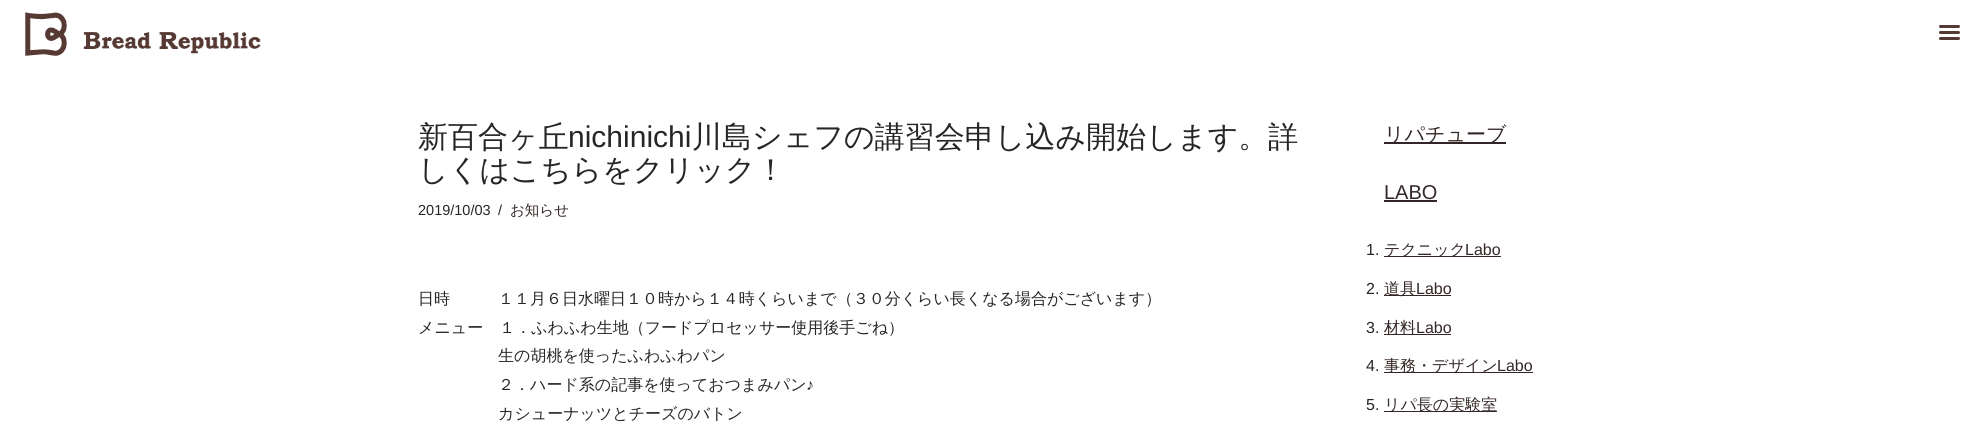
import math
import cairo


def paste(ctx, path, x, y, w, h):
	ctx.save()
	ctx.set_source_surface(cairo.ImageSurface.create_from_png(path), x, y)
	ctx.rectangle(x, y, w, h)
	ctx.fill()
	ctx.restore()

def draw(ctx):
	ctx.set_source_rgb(1, 1, 1)
	ctx.paint()
	paste(ctx, 'media/1.png', 25, 12, 236, 44)
	paste(ctx, 'media/2.png', 1939, 25, 21, 15)
	ctx.select_font_face('WenQuanYi Zen Hei Medium')
	ctx.set_font_size(30)
	ctx.set_source_rgb(0.153, 0.149, 0.149)
	ctx.move_to(418, 147)
	ctx.show_text('新百合ヶ丘')
	ctx.select_font_face('Liberation Sans')
	ctx.move_to(568, 147)
	ctx.show_text('nichinichi')
	ctx.select_font_face('WenQuanYi Zen Hei Medium')
	ctx.move_to(692, 147)
	ctx.show_text('川島シェフの講習会申し込み開始します。詳')
	ctx.move_to(418, 180)
	ctx.show_text('しくはこちらをクリック！')
	ctx.select_font_face('Liberation Sans')
	ctx.set_font_size(14.5)
	ctx.move_to(418, 215)
	ctx.show_text('2019/10/03')
	ctx.move_to(498, 215)
	ctx.show_text('/')
	ctx.select_font_face('WenQuanYi Zen Hei Medium')
	ctx.set_source_rgb(0.204, 0.149, 0.149)
	ctx.move_to(510, 215)
	ctx.show_text('お知らせ')
	ctx.set_font_size(16)
	ctx.set_source_rgb(0.153, 0.149, 0.149)
	for x, y, s in [
		(418, 304, '日時　　　１１月６日水曜日１０時から１４時くらいまで（３０分くらい長くなる場合がございます）'),
		(418, 333, 'メニュー　１．ふわふわ生地（フードプロセッサー使用後手ごね）'),
		(498, 361, '生の胡桃を使ったふわふわパン'),
		(498, 390, '２．ハード系の記事を使っておつまみパン'),
	]:
		ctx.move_to(x, y)
		ctx.show_text(s)
	ctx.select_font_face('Liberation Sans')
	ctx.move_to(806, 390)
	ctx.show_text('♪')
	ctx.select_font_face('WenQuanYi Zen Hei Medium')
	ctx.move_to(498, 419)
	ctx.show_text('カシューナッツとチーズのバトン')
	ctx.set_source_rgb(0.204, 0.149, 0.149)
	ctx.rectangle(1384, 142, 122, 2)
	ctx.fill()
	ctx.set_font_size(20)
	ctx.move_to(1384, 141)
	ctx.show_text('リパチューブ')
	ctx.select_font_face('Liberation Sans')
	ctx.move_to(1384, 199)
	ctx.show_text('LABO')
	ctx.rectangle(1384, 200, 53, 2)
	ctx.fill()
	ctx.set_font_size(16)
	ctx.set_source_rgb(0.153, 0.149, 0.149)
	ctx.move_to(1366, 255)
	ctx.show_text('1.')
	ctx.set_source_rgb(0.204, 0.149, 0.149)
	ctx.rectangle(1384, 256, 117, 1)
	ctx.fill()
	ctx.select_font_face('WenQuanYi Zen Hei Medium')
	ctx.move_to(1384, 255)
	ctx.show_text('テクニック')
	ctx.select_font_face('Liberation Sans')
	ctx.move_to(1465, 255)
	ctx.show_text('Labo')
	ctx.set_source_rgb(0.153, 0.149, 0.149)
	ctx.move_to(1366, 294)
	ctx.show_text('2.')
	ctx.set_source_rgb(0.204, 0.149, 0.149)
	ctx.rectangle(1384, 295, 67, 1)
	ctx.fill()
	ctx.select_font_face('WenQuanYi Zen Hei Medium')
	ctx.move_to(1384, 294)
	ctx.show_text('道具')
	ctx.select_font_face('Liberation Sans')
	ctx.move_to(1416, 294)
	ctx.show_text('Labo')
	ctx.set_source_rgb(0.153, 0.149, 0.149)
	ctx.move_to(1366, 333)
	ctx.show_text('3.')
	ctx.set_source_rgb(0.204, 0.149, 0.149)
	ctx.rectangle(1384, 334, 67, 1)
	ctx.fill()
	ctx.select_font_face('WenQuanYi Zen Hei Medium')
	ctx.move_to(1384, 333)
	ctx.show_text('材料')
	ctx.select_font_face('Liberation Sans')
	ctx.move_to(1416, 333)
	ctx.show_text('Labo')
	ctx.set_source_rgb(0.153, 0.149, 0.149)
	ctx.move_to(1366, 371)
	ctx.show_text('4.')
	ctx.set_source_rgb(0.204, 0.149, 0.149)
	ctx.rectangle(1384, 372, 149, 1)
	ctx.fill()
	ctx.select_font_face('WenQuanYi Zen Hei Medium')
	ctx.move_to(1384, 371)
	ctx.show_text('事務・デザイン')
	ctx.select_font_face('Liberation Sans')
	ctx.move_to(1497, 371)
	ctx.show_text('Labo')
	ctx.set_source_rgb(0.153, 0.149, 0.149)
	ctx.move_to(1366, 410)
	ctx.show_text('5.')
	ctx.set_source_rgb(0.204, 0.149, 0.149)
	ctx.rectangle(1384, 411, 113, 1)
	ctx.fill()
	ctx.select_font_face('WenQuanYi Zen Hei Medium')
	ctx.move_to(1384, 410)
	ctx.show_text('リパ長の実験室')


surface = cairo.ImageSurface(cairo.FORMAT_RGB24, 1975, 436)
ctx = cairo.Context(surface)
options = cairo.FontOptions()
options.set_hint_metrics(cairo.HINT_METRICS_OFF)
options.set_hint_style(cairo.HINT_STYLE_NONE)
ctx.set_font_options(options)
ctx.set_miter_limit(4)
draw(ctx)
surface.write_to_png('image.png')
